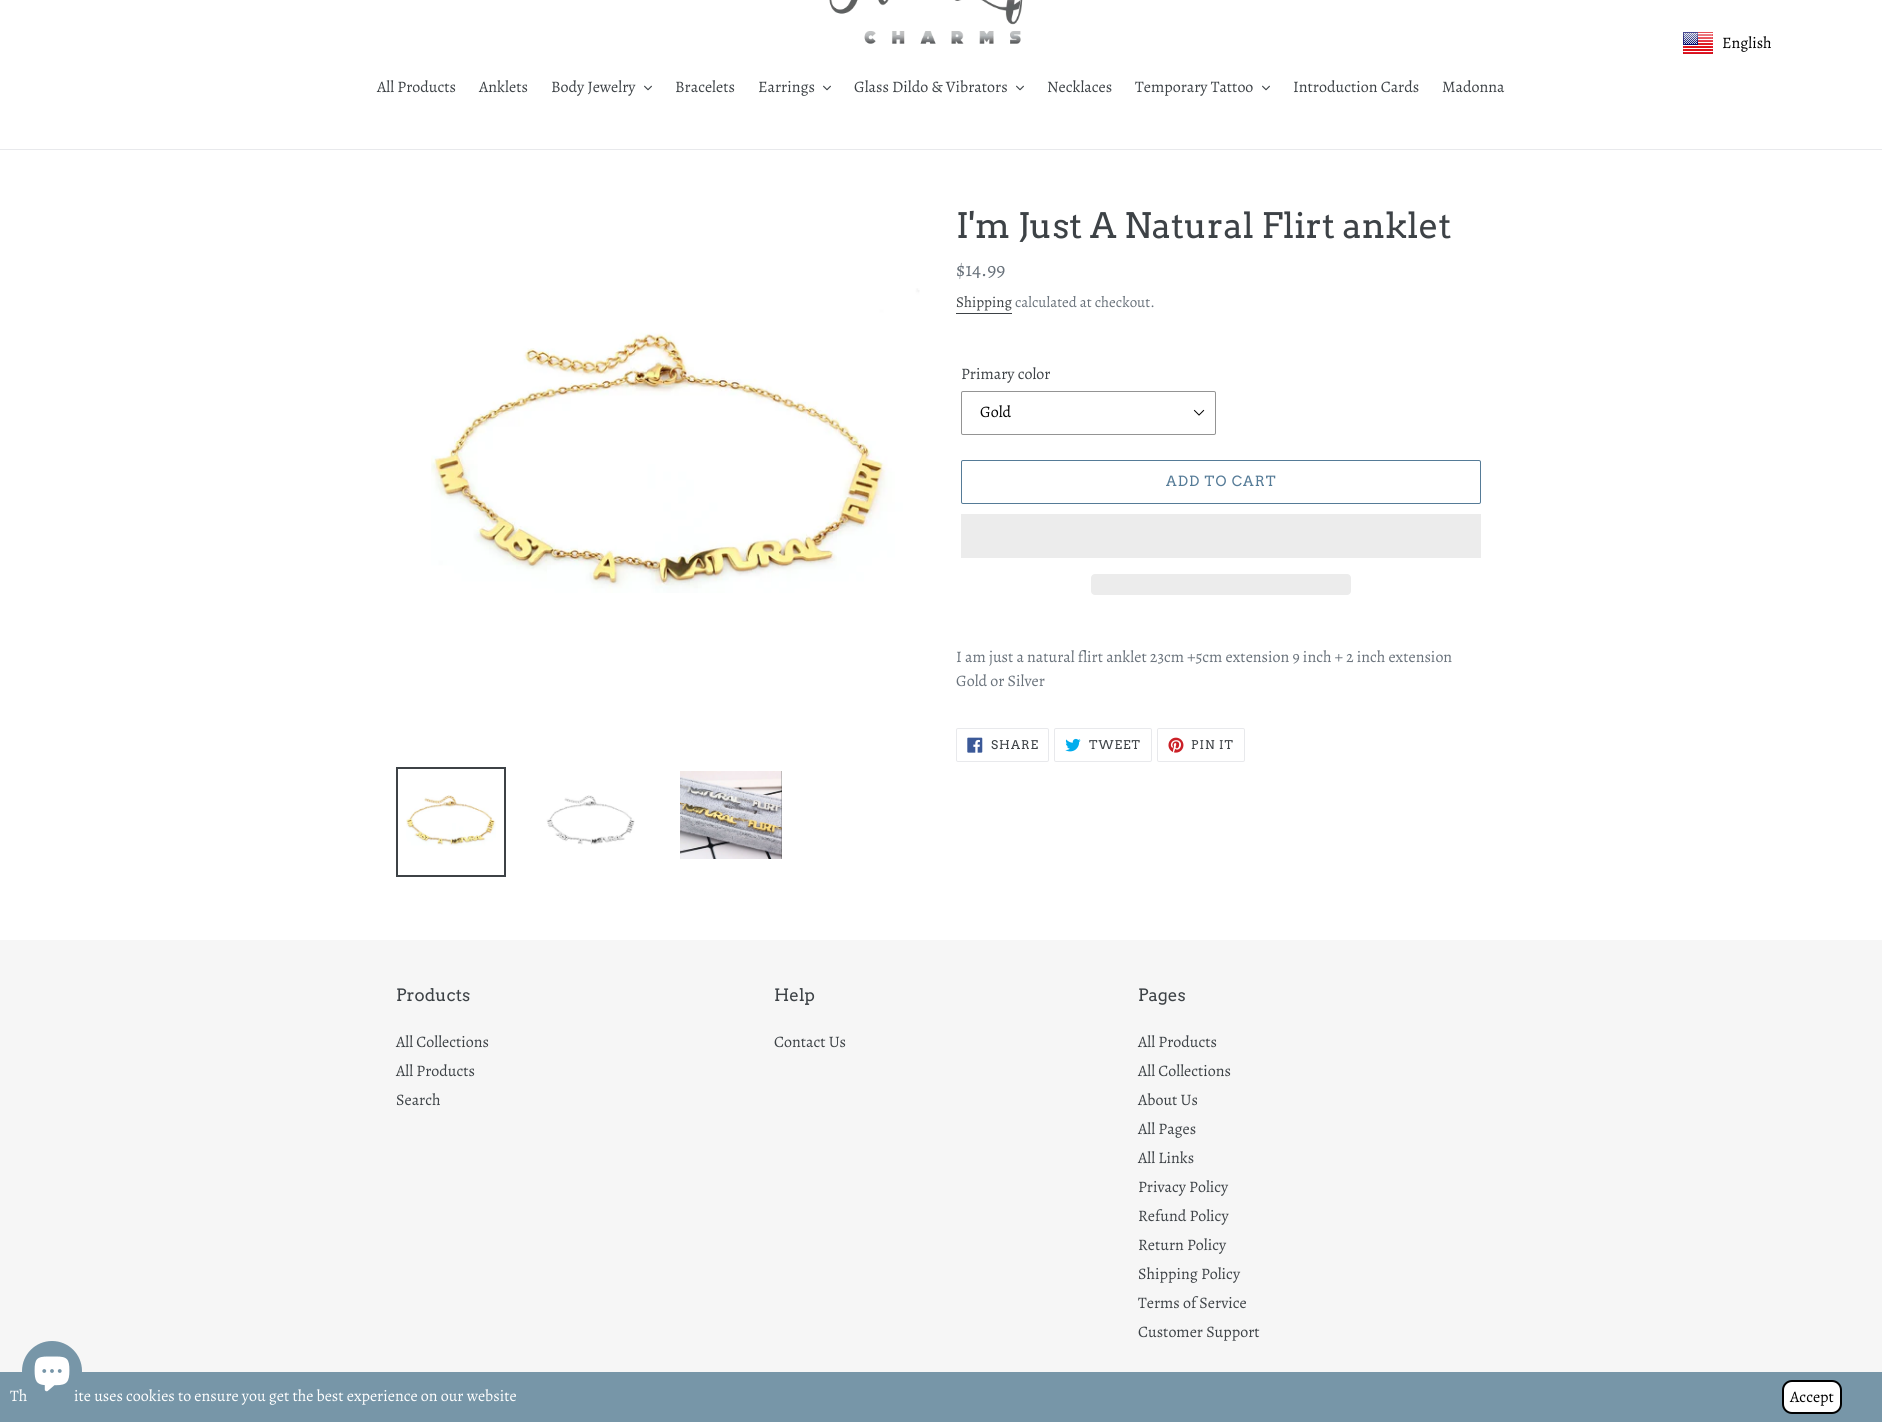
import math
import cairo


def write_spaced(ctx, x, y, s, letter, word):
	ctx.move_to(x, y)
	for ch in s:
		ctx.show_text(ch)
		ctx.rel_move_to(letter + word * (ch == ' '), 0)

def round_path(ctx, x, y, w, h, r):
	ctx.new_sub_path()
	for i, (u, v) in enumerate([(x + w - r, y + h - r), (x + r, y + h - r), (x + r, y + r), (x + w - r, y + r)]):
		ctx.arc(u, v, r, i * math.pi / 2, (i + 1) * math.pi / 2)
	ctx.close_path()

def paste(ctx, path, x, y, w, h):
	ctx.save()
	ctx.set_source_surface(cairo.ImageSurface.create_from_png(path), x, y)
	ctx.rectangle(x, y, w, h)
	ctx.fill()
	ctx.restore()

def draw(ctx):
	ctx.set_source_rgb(1, 1, 1)
	ctx.paint()
	paste(ctx, 'media/1.png', 1683, 32, 30, 22)
	ctx.select_font_face('Alegreya')
	ctx.set_font_size(16)
	ctx.set_source_rgb(0, 0, 0)
	ctx.move_to(1722, 48)
	ctx.show_text('English')
	paste(ctx, 'media/2.png', 829, 0, 194, 44)
	ctx.set_source_rgb(0.91, 0.914, 0.922)
	ctx.rectangle(0, 149, 1882, 1)
	ctx.fill()
	ctx.set_source_rgb(0.239, 0.259, 0.275)
	for x, y, s in [
		(377, 92, 'All Products'),
		(479, 92, 'Anklets'),
		(551, 92, 'Body Jewelry'),
	]:
		ctx.move_to(x, y)
		ctx.show_text(s)
	paste(ctx, 'media/3.png', 644, 85, 8, 6)
	ctx.move_to(675, 92)
	ctx.show_text('Bracelets')
	ctx.move_to(758, 92)
	ctx.show_text('Earrings')
	paste(ctx, 'media/3.png', 823, 85, 8, 6)
	ctx.move_to(854, 92)
	ctx.show_text('Glass Dildo & Vibrators')
	paste(ctx, 'media/3.png', 1016, 85, 8, 6)
	ctx.move_to(1047, 92)
	ctx.show_text('Necklaces')
	ctx.move_to(1135, 92)
	ctx.show_text('Temporary Tattoo')
	paste(ctx, 'media/3.png', 1262, 85, 8, 6)
	ctx.move_to(1293, 92)
	ctx.show_text('Introduction Cards')
	ctx.move_to(1442, 92)
	ctx.show_text('Madonna')
	paste(ctx, 'media/4.png', 431, 288, 489, 305)
	ctx.rectangle(397, 768, 108, 108)
	ctx.stroke()
	paste(ctx, 'media/5.png', 406, 795, 90, 51)
	paste(ctx, 'media/6.png', 546, 795, 89, 50)
	paste(ctx, 'media/7.png', 680, 771, 102, 88)
	ctx.select_font_face('Arvo')
	ctx.set_font_size(35)
	ctx.move_to(956, 238)
	ctx.show_text('I\'m Just A Natural Flirt anklet')
	ctx.select_font_face('Alegreya')
	ctx.set_font_size(20)
	ctx.set_source_rgb(0.412, 0.447, 0.482)
	ctx.move_to(956, 276)
	ctx.show_text('$14.99')
	ctx.set_font_size(15)
	ctx.set_source_rgb(0.239, 0.259, 0.275)
	ctx.move_to(956, 307)
	ctx.show_text('Shipping')
	ctx.rectangle(956, 313, 56, 1)
	ctx.fill()
	ctx.set_source_rgb(0.412, 0.447, 0.482)
	ctx.move_to(1015, 307)
	ctx.show_text('calculated at checkout.')
	ctx.set_font_size(16)
	ctx.set_source_rgb(0.239, 0.259, 0.275)
	ctx.move_to(961, 379)
	ctx.show_text('Primary color')
	paste(ctx, 'media/8.png', 1193, 409, 12, 7)
	round_path(ctx, 961.5, 391.5, 254, 43, 1.5)
	ctx.set_source_rgb(0.58, 0.58, 0.58)
	ctx.set_line_width(1)
	ctx.stroke()
	ctx.set_source_rgb(0, 0, 0)
	ctx.move_to(980, 417)
	ctx.show_text('Gold')
	round_path(ctx, 961.5, 460.5, 519, 43, 1.5)
	ctx.set_source_rgb(0.333, 0.482, 0.592)
	ctx.stroke()
	ctx.select_font_face('Arvo')
	ctx.set_font_size(14)
	write_spaced(ctx, 1166, 486, 'ADD TO CART', 1.1, 0)
	ctx.set_source_rgb(0.922, 0.922, 0.922)
	ctx.rectangle(961, 514, 520, 44)
	ctx.fill()
	round_path(ctx, 1091, 574, 260, 21, 4)
	ctx.fill()
	ctx.select_font_face('Alegreya')
	ctx.set_font_size(16)
	ctx.set_source_rgb(0.412, 0.447, 0.482)
	ctx.move_to(956, 662)
	ctx.show_text('I am just a natural flirt anklet 23cm +5cm extension 9 inch + 2 inch extension')
	ctx.move_to(956, 686)
	ctx.show_text('Gold or Silver')
	round_path(ctx, 956.5, 728.5, 92, 33, 1.5)
	ctx.set_source_rgb(0.91, 0.914, 0.922)
	ctx.stroke()
	paste(ctx, 'media/9.png', 967, 737, 16, 16)
	ctx.select_font_face('Arvo')
	ctx.set_font_size(12)
	ctx.set_source_rgb(0.239, 0.259, 0.275)
	write_spaced(ctx, 991, 749, 'SHARE', 1, 0)
	round_path(ctx, 1054.5, 728.5, 97, 33, 1.5)
	ctx.set_source_rgb(0.91, 0.914, 0.922)
	ctx.stroke()
	paste(ctx, 'media/10.png', 1065, 738, 16, 14)
	ctx.set_source_rgb(0.239, 0.259, 0.275)
	write_spaced(ctx, 1089, 749, 'TWEET', 1, 0)
	round_path(ctx, 1157.5, 728.5, 87, 33, 1.5)
	ctx.set_source_rgb(0.91, 0.914, 0.922)
	ctx.stroke()
	paste(ctx, 'media/11.png', 1168, 737, 16, 16)
	ctx.set_source_rgb(0.239, 0.259, 0.275)
	write_spaced(ctx, 1191, 749, 'PIN IT', 1, 0)
	ctx.set_source_rgb(0.961, 0.961, 0.961)
	ctx.rectangle(0, 940, 1882, 432)
	ctx.fill()
	ctx.set_font_size(17)
	ctx.set_source_rgb(0.239, 0.259, 0.275)
	ctx.move_to(396, 1001)
	ctx.show_text('Products')
	ctx.select_font_face('Alegreya')
	ctx.set_font_size(16)
	for x, y, s in [
		(396, 1047, 'All Collections'),
		(396, 1076, 'All Products'),
		(396, 1105, 'Search'),
	]:
		ctx.move_to(x, y)
		ctx.show_text(s)
	ctx.select_font_face('Arvo')
	ctx.set_font_size(17)
	ctx.move_to(774, 1001)
	ctx.show_text('Help')
	ctx.select_font_face('Alegreya')
	ctx.set_font_size(16)
	ctx.move_to(774, 1047)
	ctx.show_text('Contact Us')
	ctx.select_font_face('Arvo')
	ctx.set_font_size(17)
	ctx.move_to(1138, 1001)
	ctx.show_text('Pages')
	ctx.select_font_face('Alegreya')
	ctx.set_font_size(16)
	for x, y, s in [
		(1138, 1047, 'All Products'),
		(1138, 1076, 'All Collections'),
		(1138, 1105, 'About Us'),
		(1138, 1134, 'All Pages'),
		(1138, 1163, 'All Links'),
		(1138, 1192, 'Privacy Policy'),
		(1138, 1221, 'Refund Policy'),
		(1138, 1250, 'Return Policy'),
		(1138, 1279, 'Shipping Policy'),
		(1138, 1308, 'Terms of Service'),
		(1138, 1337, 'Customer Support'),
	]:
		ctx.move_to(x, y)
		ctx.show_text(s)
	ctx.set_source_rgb(0.467, 0.588, 0.659)
	ctx.rectangle(0, 1372, 1882, 50)
	ctx.fill()
	ctx.set_source_rgb(1, 1, 1)
	ctx.move_to(10, 1401)
	ctx.show_text('Th')
	ctx.move_to(74, 1401)
	ctx.show_text('ite uses cookies to ensure you get the best experience on our website')
	ctx.set_source_rgb(0.467, 0.588, 0.659)
	ctx.new_path()
	ctx.arc(52, 1371, 30, 0, 2 * math.pi)
	ctx.fill()
	paste(ctx, 'media/12.png', 34, 1356, 36, 36)
	ctx.set_source_rgb(1, 1, 1)
	round_path(ctx, 1783, 1381, 58, 32, 9)
	ctx.fill_preserve()
	ctx.set_source_rgb(0, 0, 0)
	ctx.set_line_width(2)
	ctx.stroke()
	ctx.move_to(1790, 1402)
	ctx.show_text('Accept')


surface = cairo.ImageSurface(cairo.FORMAT_RGB24, 1882, 1422)
ctx = cairo.Context(surface)
options = cairo.FontOptions()
options.set_hint_metrics(cairo.HINT_METRICS_OFF)
options.set_hint_style(cairo.HINT_STYLE_NONE)
ctx.set_font_options(options)
ctx.set_miter_limit(4)
draw(ctx)
surface.write_to_png('image.png')
